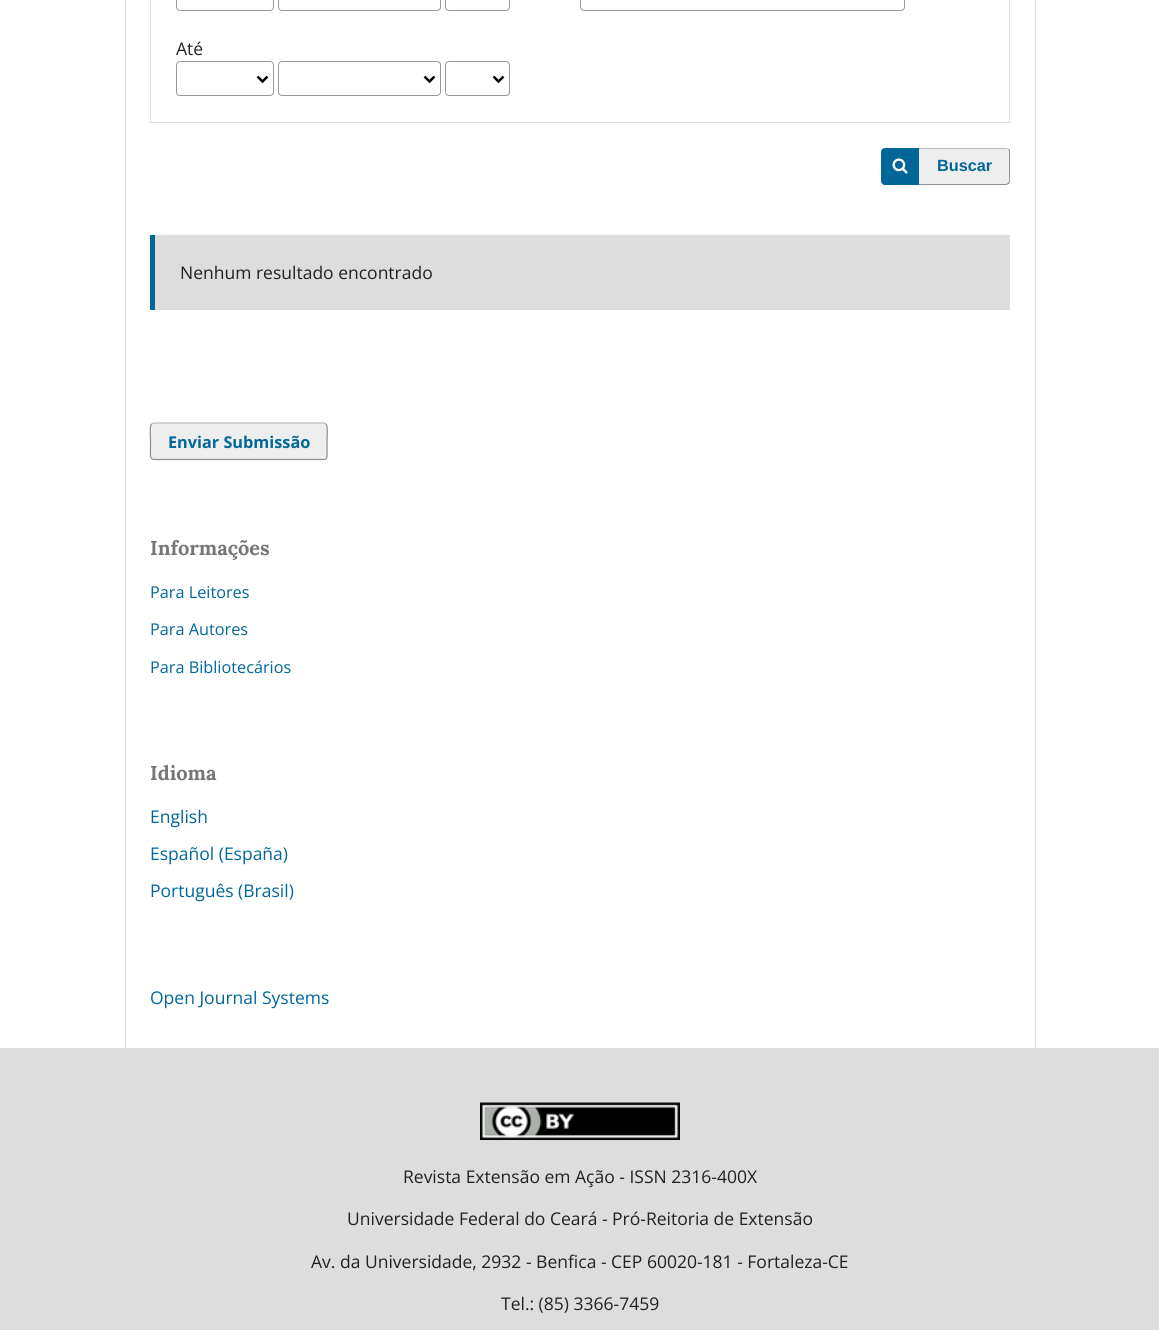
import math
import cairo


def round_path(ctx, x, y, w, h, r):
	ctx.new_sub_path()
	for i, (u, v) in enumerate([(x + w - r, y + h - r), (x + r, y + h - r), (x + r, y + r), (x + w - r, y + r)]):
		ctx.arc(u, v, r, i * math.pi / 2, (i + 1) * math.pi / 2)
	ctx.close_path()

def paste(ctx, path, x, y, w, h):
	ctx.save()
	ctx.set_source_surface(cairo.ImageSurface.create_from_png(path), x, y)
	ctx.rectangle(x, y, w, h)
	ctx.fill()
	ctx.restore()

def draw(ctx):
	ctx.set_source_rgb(1, 1, 1)
	ctx.paint()
	ctx.set_source_rgb(0.867, 0.867, 0.867)
	ctx.rectangle(125, 0, 1, 1048)
	ctx.fill()
	ctx.rectangle(150.5, -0.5, 859, 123)
	ctx.set_line_width(1)
	ctx.stroke()
	round_path(ctx, 580.5, -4.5, 324, 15, 3.5)
	ctx.set_source_rgb(0.6, 0.6, 0.6)
	ctx.stroke()
	round_path(ctx, 176.5, -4.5, 97, 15, 3.5)
	ctx.stroke()
	round_path(ctx, 278.5, -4.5, 162, 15, 3.5)
	ctx.stroke()
	round_path(ctx, 445.5, -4.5, 64, 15, 3.5)
	ctx.stroke()
	ctx.select_font_face('Open Sans')
	ctx.set_font_size(17.5)
	ctx.set_source_rgb(0.129, 0.129, 0.129)
	ctx.move_to(176, 55)
	ctx.show_text('Até')
	round_path(ctx, 176.5, 61.5, 97, 34, 3.5)
	ctx.set_source_rgb(0.6, 0.6, 0.6)
	ctx.stroke()
	ctx.new_path()
	ctx.move_to(257.5, 76.5)
	ctx.line_to(262.5, 81.5)
	ctx.line_to(267.5, 76.5)
	ctx.set_source_rgb(0, 0, 0)
	ctx.set_line_width(2.5)
	ctx.stroke()
	round_path(ctx, 278.5, 61.5, 162, 34, 3.5)
	ctx.set_source_rgb(0.6, 0.6, 0.6)
	ctx.set_line_width(1)
	ctx.stroke()
	ctx.new_path()
	ctx.move_to(424.5, 76.5)
	ctx.line_to(429.5, 81.5)
	ctx.line_to(434.5, 76.5)
	ctx.set_source_rgb(0, 0, 0)
	ctx.set_line_width(2.5)
	ctx.stroke()
	round_path(ctx, 445.5, 61.5, 64, 34, 3.5)
	ctx.set_source_rgb(0.6, 0.6, 0.6)
	ctx.set_line_width(1)
	ctx.stroke()
	ctx.new_path()
	ctx.move_to(493.5, 76.5)
	ctx.line_to(498.5, 81.5)
	ctx.line_to(503.5, 76.5)
	ctx.set_source_rgb(0, 0, 0)
	ctx.set_line_width(2.5)
	ctx.stroke()
	ctx.set_source_rgb(0.933, 0.933, 0.933)
	round_path(ctx, 881, 148, 129, 37, 4)
	ctx.fill()
	ctx.set_source_rgb(0.733, 0.733, 0.733)
	ctx.new_path()
	ctx.move_to(885, 148)
	ctx.line_to(1006, 148)
	ctx.line_to(1009, 149)
	ctx.line_to(1008, 149)
	ctx.line_to(1006, 149)
	ctx.line_to(885, 149)
	ctx.curve_to(883, 149, 882, 150, 881, 150)
	ctx.curve_to(881, 149, 884, 148, 885, 148)
	ctx.close_path()
	ctx.fill()
	ctx.set_source_rgba(0, 0, 0, 0.4)
	ctx.new_path()
	ctx.move_to(1009, 149)
	ctx.curve_to(1009.5, 149, 1010, 150, 1010, 151)
	ctx.line_to(1010, 181)
	ctx.curve_to(1010, 182, 1009.5, 183, 1009, 184)
	ctx.line_to(1008, 183)
	ctx.curve_to(1010, 181.5, 1009, 177, 1009, 176)
	ctx.line_to(1009, 151)
	ctx.line_to(1008, 149.5)
	ctx.close_path()
	ctx.fill()
	ctx.new_path()
	ctx.move_to(881, 182)
	ctx.curve_to(882, 184, 884, 184, 885, 184)
	ctx.line_to(1006, 184)
	ctx.line_to(1008, 183)
	ctx.line_to(1009, 184)
	ctx.line_to(1006, 185)
	ctx.line_to(885, 185)
	ctx.curve_to(884, 185, 881, 184, 881, 182)
	ctx.close_path()
	ctx.fill()
	ctx.set_source_rgb(0, 0.404, 0.596)
	ctx.new_path()
	ctx.move_to(885, 148)
	ctx.line_to(919, 148)
	ctx.line_to(919, 185)
	ctx.line_to(885, 185)
	ctx.curve_to(883, 185, 881, 183, 881, 181)
	ctx.line_to(881, 152)
	ctx.curve_to(881, 150, 883, 148, 885, 148)
	ctx.close_path()
	ctx.fill()
	paste(ctx, 'media/1.png', 892, 158, 16, 16)
	ctx.select_font_face('Liberation Sans', cairo.FONT_SLANT_NORMAL, cairo.FONT_WEIGHT_BOLD)
	ctx.set_font_size(16.25)
	ctx.move_to(937, 171)
	ctx.show_text('Buscar')
	ctx.set_source_rgb(0.867, 0.867, 0.867)
	ctx.rectangle(155, 235, 855, 75)
	ctx.fill()
	ctx.set_source_rgb(0, 0.404, 0.596)
	ctx.rectangle(150, 235, 5, 75)
	ctx.fill()
	ctx.select_font_face('Open Sans')
	ctx.set_font_size(17.5)
	ctx.set_source_rgb(0.129, 0.129, 0.129)
	ctx.move_to(180, 279)
	ctx.show_text('Nenhum resultado encontrado')
	ctx.set_source_rgb(0.867, 0.867, 0.867)
	ctx.rectangle(1035, 0, 1, 1048)
	ctx.fill()
	ctx.set_source_rgb(0.933, 0.933, 0.933)
	round_path(ctx, 150, 423, 178, 37, 4)
	ctx.fill()
	ctx.new_path()
	ctx.move_to(151.5, 424)
	ctx.line_to(154, 423)
	ctx.line_to(324, 423)
	ctx.line_to(326, 424)
	ctx.set_source_rgb(0.733, 0.733, 0.733)
	ctx.set_line_width(1.2)
	ctx.stroke()
	ctx.new_path()
	ctx.move_to(326, 424)
	ctx.curve_to(328, 426, 327, 438, 327, 441)
	ctx.line_to(327, 451)
	ctx.curve_to(327, 453.5, 328, 459.5, 324, 459.5)
	ctx.line_to(154, 459.5)
	ctx.curve_to(149.5, 459.5, 150.5, 453.5, 150.5, 451)
	ctx.line_to(150.5, 441)
	ctx.curve_to(150.5, 438, 149.5, 426, 151.5, 424)
	ctx.set_source_rgba(0, 0, 0, 0.4)
	ctx.stroke()
	ctx.select_font_face('Open Sans', cairo.FONT_SLANT_NORMAL, cairo.FONT_WEIGHT_BOLD)
	ctx.set_font_size(16.25)
	ctx.set_source_rgb(0, 0.404, 0.596)
	ctx.move_to(168, 448)
	ctx.show_text('Enviar Submissão')
	ctx.select_font_face('Lora', cairo.FONT_SLANT_NORMAL, cairo.FONT_WEIGHT_BOLD)
	ctx.set_font_size(20)
	ctx.set_source_rgb(0.459, 0.459, 0.459)
	ctx.move_to(150, 555)
	ctx.show_text('Informações')
	ctx.select_font_face('Open Sans')
	ctx.set_font_size(16.25)
	ctx.set_source_rgb(0, 0.404, 0.596)
	for x, y, s in [
		(150, 598, 'Para Leitores'),
		(150, 635, 'Para Autores'),
		(150, 673, 'Para Bibliotecários'),
	]:
		ctx.move_to(x, y)
		ctx.show_text(s)
	ctx.select_font_face('Lora', cairo.FONT_SLANT_NORMAL, cairo.FONT_WEIGHT_BOLD)
	ctx.set_font_size(20)
	ctx.set_source_rgb(0.459, 0.459, 0.459)
	ctx.move_to(150, 780)
	ctx.show_text('Idioma')
	ctx.select_font_face('Open Sans')
	ctx.set_font_size(17.5)
	ctx.set_source_rgb(0, 0.404, 0.596)
	for x, y, s in [
		(150, 823, 'English'),
		(150, 860, 'Español (España)'),
		(150, 897, 'Português (Brasil)'),
		(150, 1004, 'Open Journal Systems'),
	]:
		ctx.move_to(x, y)
		ctx.show_text(s)
	ctx.set_source_rgb(0.867, 0.867, 0.867)
	ctx.rectangle(0, 1048, 1159, 282)
	ctx.fill()
	paste(ctx, 'media/2.png', 480, 1102, 200, 38)
	ctx.set_source_rgb(0.129, 0.129, 0.129)
	for x, y, s in [
		(403, 1183, 'Revista Extensão em Ação - ISSN 2316-400X'),
		(347, 1225, 'Universidade Federal do Ceará - Pró-Reitoria de Extensão'),
		(311, 1268, 'Av. da Universidade, 2932 - Benfica - CEP 60020-181 - Fortaleza-CE'),
		(501, 1310, 'Tel.: (85) 3366-7459'),
	]:
		ctx.move_to(x, y)
		ctx.show_text(s)


surface = cairo.ImageSurface(cairo.FORMAT_RGB24, 1159, 1330)
ctx = cairo.Context(surface)
options = cairo.FontOptions()
options.set_hint_metrics(cairo.HINT_METRICS_OFF)
options.set_hint_style(cairo.HINT_STYLE_NONE)
ctx.set_font_options(options)
ctx.set_miter_limit(4)
draw(ctx)
surface.write_to_png('image.png')
